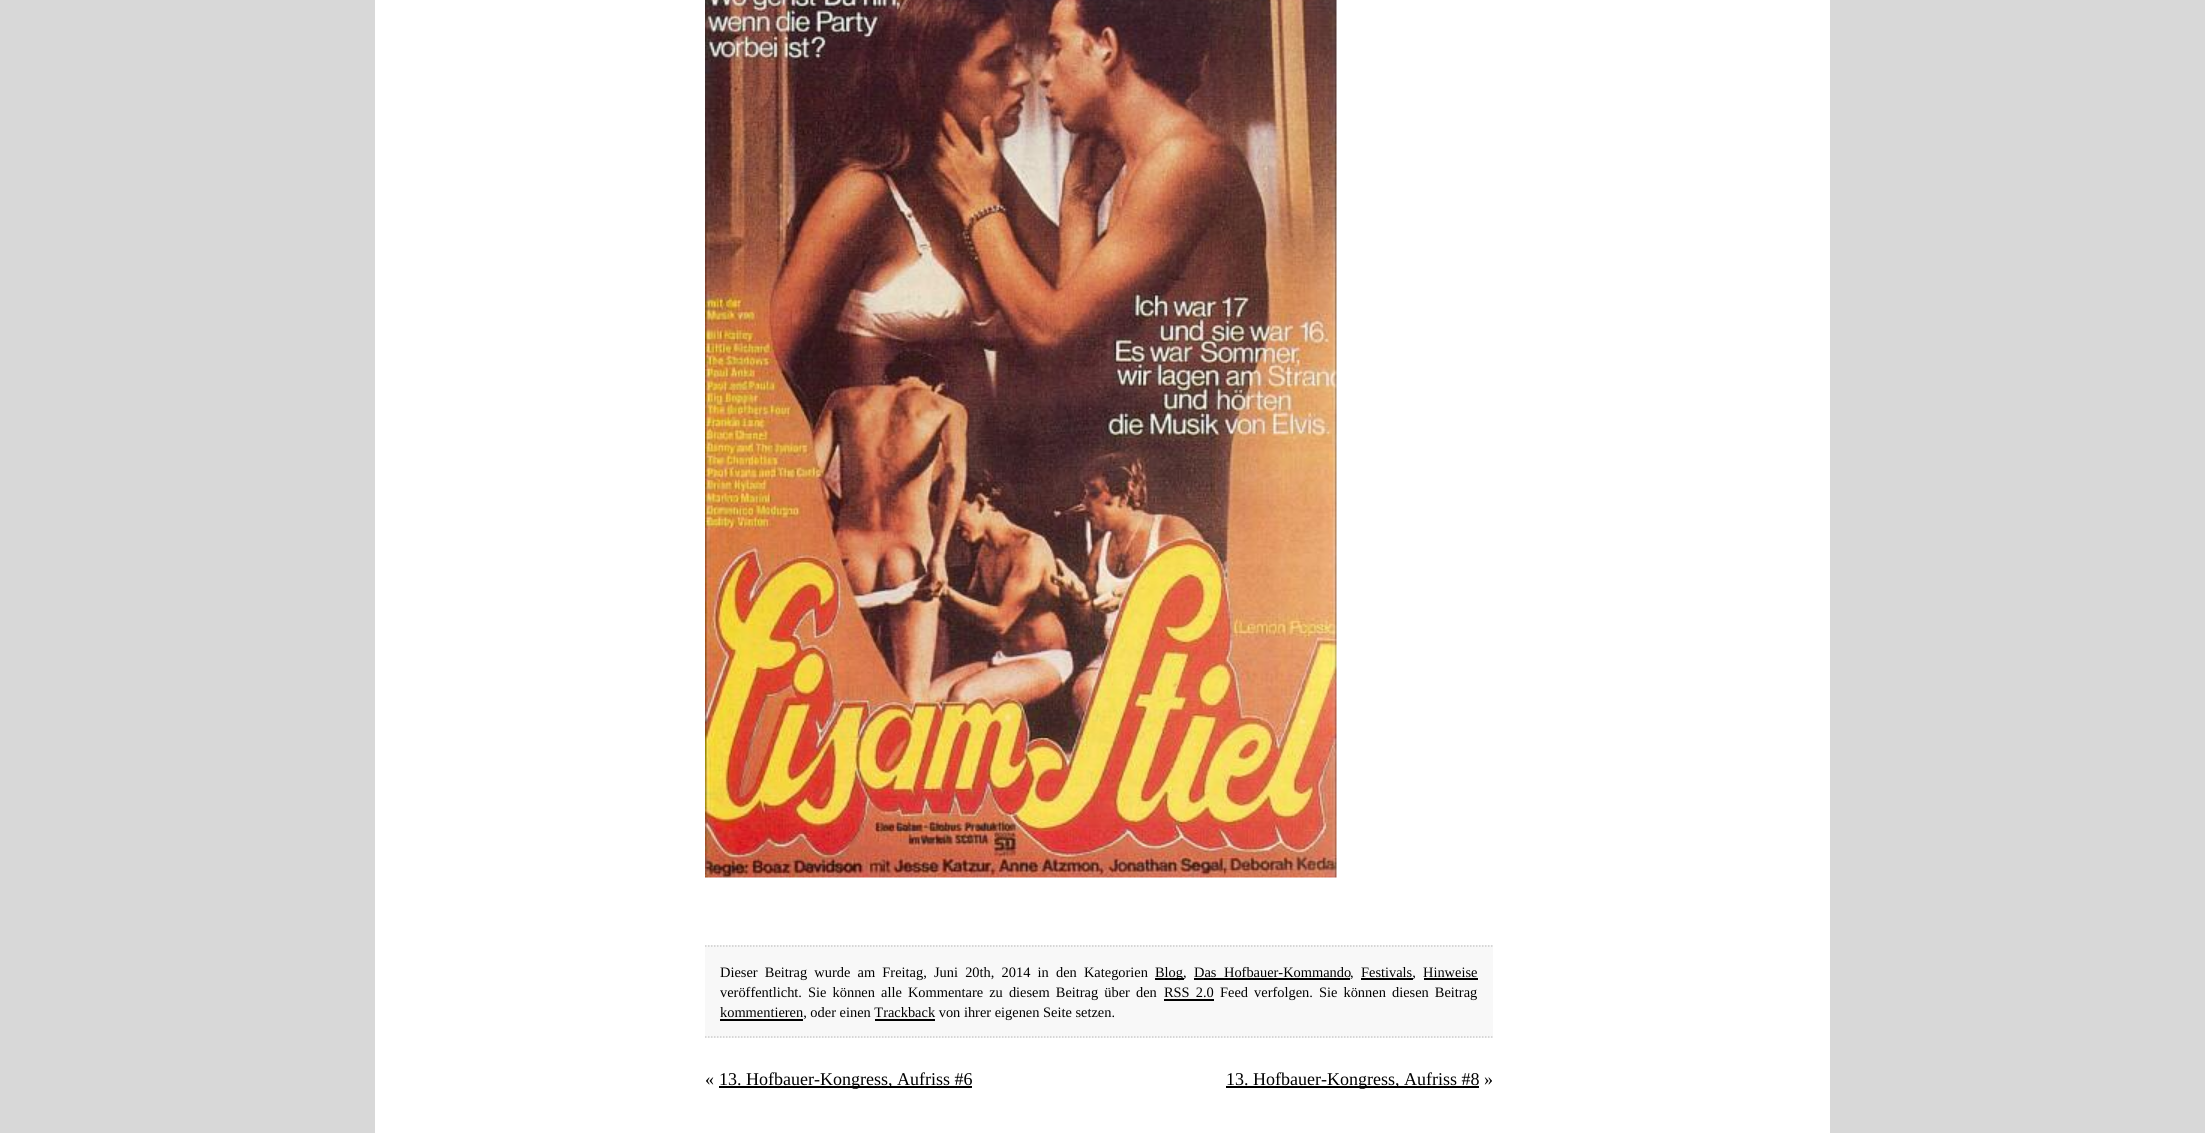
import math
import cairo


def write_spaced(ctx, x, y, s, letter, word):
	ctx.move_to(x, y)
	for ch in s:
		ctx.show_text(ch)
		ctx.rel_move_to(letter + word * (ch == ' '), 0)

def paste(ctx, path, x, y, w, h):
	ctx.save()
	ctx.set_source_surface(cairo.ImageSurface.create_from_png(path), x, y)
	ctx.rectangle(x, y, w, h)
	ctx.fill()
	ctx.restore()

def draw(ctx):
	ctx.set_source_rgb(0.847, 0.847, 0.847)
	ctx.paint()
	ctx.set_source_rgb(1, 1, 1)
	ctx.rectangle(375, 0, 1455, 1133)
	ctx.fill()
	paste(ctx, 'media/1.png', 705, 0, 632, 878)
	ctx.set_source_rgb(0.969, 0.969, 0.969)
	ctx.rectangle(705, 945, 788, 93)
	ctx.fill()
	ctx.new_path()
	ctx.move_to(705, 946)
	ctx.line_to(1492.5, 946)
	ctx.set_source_rgb(0.8, 0.8, 0.8)
	ctx.set_line_width(1.5)
	ctx.set_dash([1.5, 1.5])
	ctx.stroke()
	ctx.new_path()
	ctx.move_to(705, 1037)
	ctx.line_to(1492.5, 1037)
	ctx.stroke()
	ctx.select_font_face('Liberation Serif')
	ctx.set_font_size(14.4)
	ctx.set_source_rgb(0, 0, 0)
	write_spaced(ctx, 720, 977, 'Dieser Beitrag wurde am Freitag, Juni 20th, 2014 in den Kategorien', 0, 3.6)
	ctx.rectangle(1155, 978, 29, 2)
	ctx.fill()
	ctx.move_to(1155, 977)
	ctx.show_text('Blog,')
	write_spaced(ctx, 1194, 977, 'Das Hofbauer-Kommando', 0, 4)
	ctx.rectangle(1194, 978, 156, 2)
	ctx.fill()
	ctx.move_to(1350, 977)
	ctx.show_text(',')
	ctx.rectangle(1361, 978, 52, 2)
	ctx.fill()
	ctx.move_to(1361, 977)
	ctx.show_text('Festivals,')
	ctx.move_to(1423, 977)
	ctx.show_text('Hinweise')
	ctx.rectangle(1424, 978, 54, 2)
	ctx.fill()
	write_spaced(ctx, 720, 997, 'veröffentlicht. Sie können alle Kommentare zu diesem Beitrag über den', 0, 2.5)
	write_spaced(ctx, 1164, 997, 'RSS 2.0', 0, 2.5)
	ctx.rectangle(1164, 999, 50, 2)
	ctx.fill()
	write_spaced(ctx, 1220, 997, 'Feed verfolgen. Sie können diesen Beitrag', 0, 2.5)
	ctx.rectangle(720, 1019, 83, 2)
	ctx.fill()
	ctx.move_to(720, 1017)
	ctx.show_text('kommentieren, oder einen Trackback von ihrer eigenen Seite setzen.')
	ctx.rectangle(875, 1019, 60, 2)
	ctx.fill()
	ctx.set_font_size(18)
	ctx.move_to(705, 1085)
	ctx.show_text('«')
	ctx.rectangle(719, 1086, 253, 2)
	ctx.fill()
	ctx.move_to(719, 1085)
	ctx.show_text('13. Hofbauer-Kongress, Aufriss #6')
	ctx.rectangle(1226, 1086, 253, 2)
	ctx.fill()
	ctx.move_to(1226, 1085)
	ctx.show_text('13. Hofbauer-Kongress, Aufriss #8 »')


surface = cairo.ImageSurface(cairo.FORMAT_RGB24, 2205, 1133)
ctx = cairo.Context(surface)
options = cairo.FontOptions()
options.set_hint_metrics(cairo.HINT_METRICS_OFF)
options.set_hint_style(cairo.HINT_STYLE_NONE)
ctx.set_font_options(options)
ctx.set_miter_limit(4)
draw(ctx)
surface.write_to_png('image.png')
